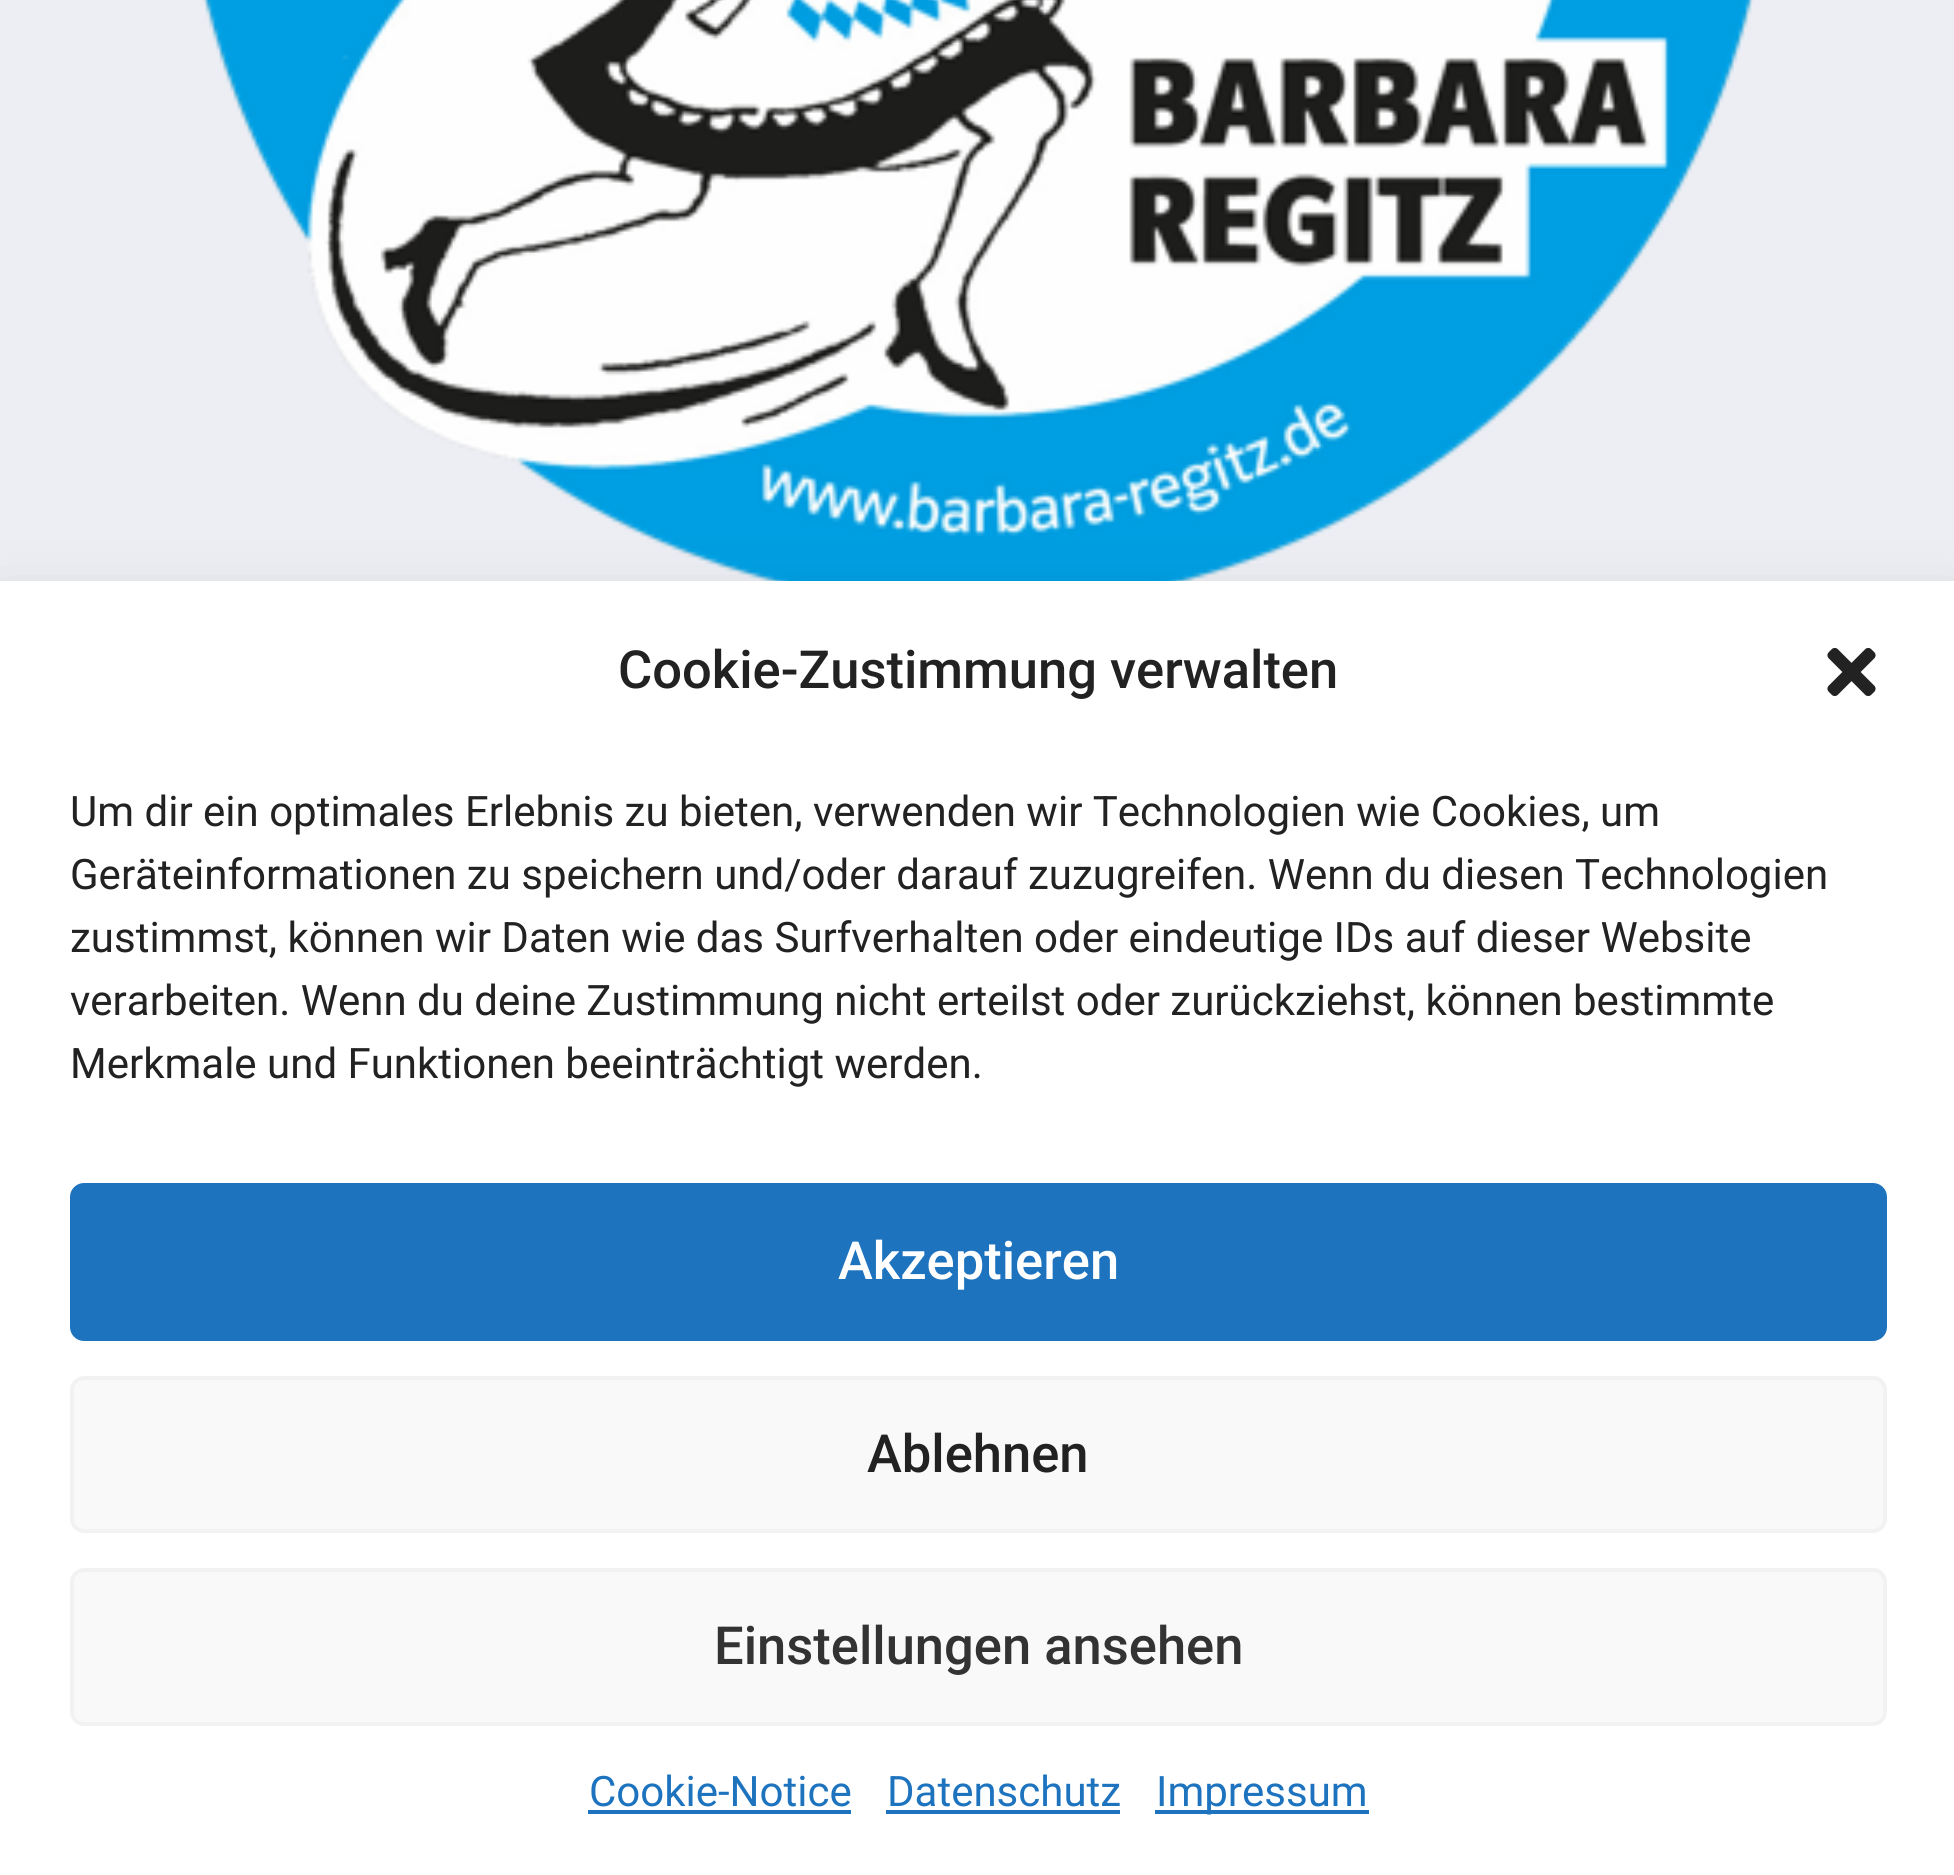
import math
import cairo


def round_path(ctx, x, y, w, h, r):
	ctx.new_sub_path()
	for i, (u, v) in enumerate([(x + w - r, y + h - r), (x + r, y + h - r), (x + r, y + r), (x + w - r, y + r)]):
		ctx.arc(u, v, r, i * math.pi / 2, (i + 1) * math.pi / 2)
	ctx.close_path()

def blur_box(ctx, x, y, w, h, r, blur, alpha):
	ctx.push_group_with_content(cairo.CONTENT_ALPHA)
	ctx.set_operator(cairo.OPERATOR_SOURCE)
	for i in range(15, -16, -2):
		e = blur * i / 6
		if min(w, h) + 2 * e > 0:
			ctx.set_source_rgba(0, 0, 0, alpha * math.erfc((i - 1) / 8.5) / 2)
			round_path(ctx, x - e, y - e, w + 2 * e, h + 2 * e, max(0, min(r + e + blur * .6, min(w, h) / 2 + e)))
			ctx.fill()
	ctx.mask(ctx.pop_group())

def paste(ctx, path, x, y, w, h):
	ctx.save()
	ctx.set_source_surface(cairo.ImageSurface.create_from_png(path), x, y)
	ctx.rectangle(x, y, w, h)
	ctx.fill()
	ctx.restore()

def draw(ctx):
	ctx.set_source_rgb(0.925, 0.933, 0.957)
	ctx.paint()
	paste(ctx, 'media/1.png', 202, 0, 1552, 581)
	ctx.set_source_rgb(0, 0, 0)
	blur_box(ctx, 0, 616, 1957, 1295, 0, 35, 0.19)
	ctx.set_source_rgb(1, 1, 1)
	ctx.rectangle(0, 581, 1954, 1294)
	ctx.fill()
	ctx.select_font_face('Roboto Medium')
	ctx.set_font_size(52.5)
	ctx.set_source_rgb(0.133, 0.133, 0.133)
	ctx.move_to(618, 688)
	ctx.show_text('Cookie-Zustimmung verwalten')
	paste(ctx, 'media/2.png', 1827, 647, 49, 50)
	ctx.select_font_face('Roboto')
	ctx.set_font_size(42)
	for x, y, s in [
		(70, 826, 'Um dir ein optimales Erlebnis zu bieten, verwenden wir Technologien wie Cookies, um'),
		(70, 889, 'Geräteinformationen zu speichern und/oder darauf zuzugreifen. Wenn du diesen Technologien'),
		(70, 952, 'zustimmst, können wir Daten wie das Surfverhalten oder eindeutige IDs auf dieser Website'),
		(70, 1015, 'verarbeiten. Wenn du deine Zustimmung nicht erteilst oder zurückziehst, können bestimmte'),
		(70, 1078, 'Merkmale und Funktionen beeinträchtigt werden.'),
	]:
		ctx.move_to(x, y)
		ctx.show_text(s)
	ctx.set_source_rgb(0.118, 0.451, 0.745)
	round_path(ctx, 72, 1185, 1813, 154, 12)
	ctx.fill_preserve()
	ctx.set_line_width(4)
	ctx.stroke()
	ctx.select_font_face('Roboto Medium')
	ctx.set_font_size(52.5)
	ctx.set_source_rgb(1, 1, 1)
	ctx.move_to(838, 1279)
	ctx.show_text('Akzeptieren')
	ctx.set_source_rgb(0.976, 0.976, 0.976)
	round_path(ctx, 72, 1378, 1813, 153, 12)
	ctx.fill_preserve()
	ctx.set_source_rgb(0.949, 0.949, 0.949)
	ctx.stroke()
	ctx.set_source_rgb(0.133, 0.133, 0.133)
	ctx.move_to(867, 1472)
	ctx.show_text('Ablehnen')
	ctx.set_source_rgb(0.976, 0.976, 0.976)
	round_path(ctx, 72, 1570, 1813, 154, 12)
	ctx.fill_preserve()
	ctx.set_source_rgb(0.949, 0.949, 0.949)
	ctx.stroke()
	ctx.set_source_rgb(0.2, 0.2, 0.2)
	ctx.move_to(714, 1664)
	ctx.show_text('Einstellungen ansehen')
	ctx.select_font_face('Roboto')
	ctx.set_font_size(42)
	ctx.set_source_rgb(0.118, 0.451, 0.745)
	ctx.move_to(589, 1806)
	ctx.show_text('Cookie-Notice')
	ctx.rectangle(588, 1810, 263, 4)
	ctx.fill()
	ctx.move_to(887, 1806)
	ctx.show_text('Datenschutz')
	ctx.rectangle(886, 1810, 234, 4)
	ctx.fill()
	ctx.rectangle(1155, 1810, 214, 4)
	ctx.fill()
	ctx.move_to(1156, 1806)
	ctx.show_text('Impressum')


surface = cairo.ImageSurface(cairo.FORMAT_RGB24, 1954, 1875)
ctx = cairo.Context(surface)
options = cairo.FontOptions()
options.set_hint_metrics(cairo.HINT_METRICS_OFF)
options.set_hint_style(cairo.HINT_STYLE_NONE)
ctx.set_font_options(options)
ctx.set_miter_limit(4)
draw(ctx)
surface.write_to_png('image.png')
